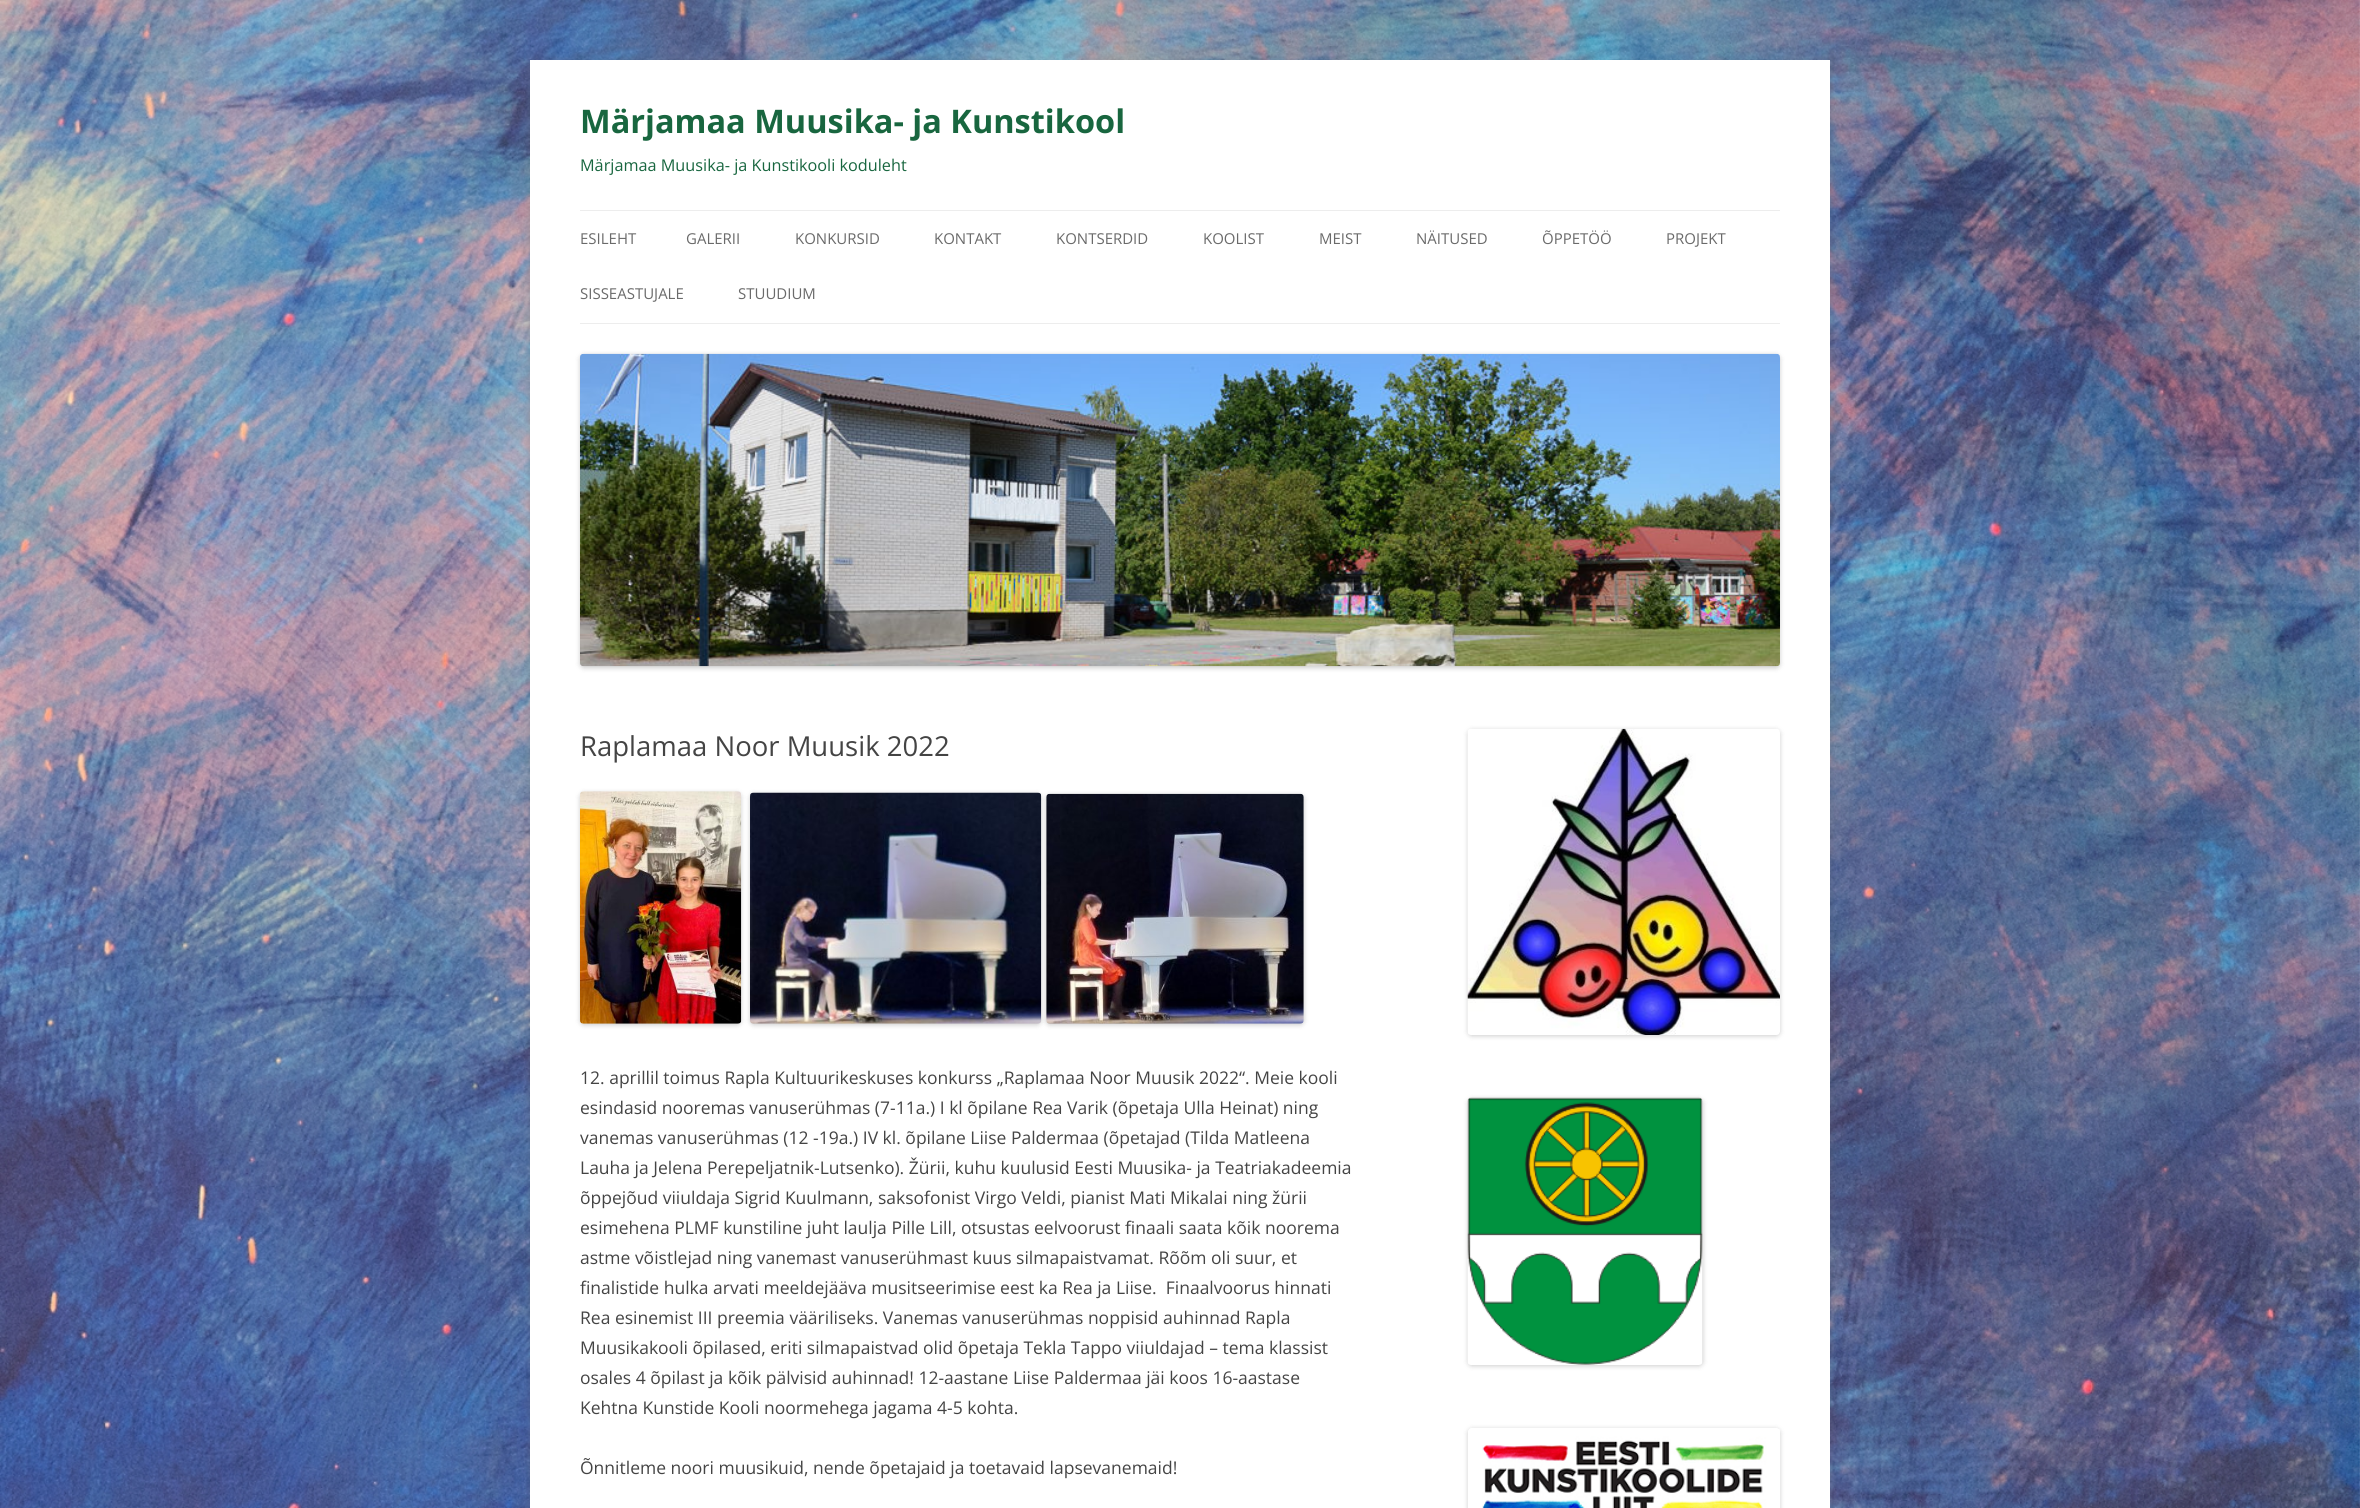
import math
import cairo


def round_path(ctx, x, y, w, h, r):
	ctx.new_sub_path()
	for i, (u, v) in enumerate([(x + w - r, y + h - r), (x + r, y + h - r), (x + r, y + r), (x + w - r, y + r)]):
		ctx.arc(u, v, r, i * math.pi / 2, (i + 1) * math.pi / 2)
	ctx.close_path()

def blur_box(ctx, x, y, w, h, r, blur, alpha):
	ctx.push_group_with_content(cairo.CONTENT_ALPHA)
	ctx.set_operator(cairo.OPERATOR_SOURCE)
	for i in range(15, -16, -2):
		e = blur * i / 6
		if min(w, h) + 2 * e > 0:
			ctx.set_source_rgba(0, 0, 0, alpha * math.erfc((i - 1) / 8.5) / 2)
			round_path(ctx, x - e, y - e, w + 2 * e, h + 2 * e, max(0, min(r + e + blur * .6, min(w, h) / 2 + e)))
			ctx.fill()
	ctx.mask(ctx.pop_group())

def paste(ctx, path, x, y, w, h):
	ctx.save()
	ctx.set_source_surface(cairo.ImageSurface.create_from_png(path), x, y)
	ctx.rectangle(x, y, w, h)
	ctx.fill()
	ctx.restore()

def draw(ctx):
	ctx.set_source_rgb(1, 1, 1)
	ctx.paint()
	paste(ctx, 'media/1.png', 0, 0, 2360, 1508)
	ctx.set_source_rgb(0.392, 0.392, 0.392)
	blur_box(ctx, 530, 63, 1300, 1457, 0, 4, 0.3)
	ctx.set_source_rgb(1, 1, 1)
	ctx.rectangle(530, 60, 1300, 1448)
	ctx.fill()
	ctx.select_font_face('Open Sans', cairo.FONT_SLANT_NORMAL, cairo.FONT_WEIGHT_BOLD)
	ctx.set_font_size(32.5)
	ctx.set_source_rgb(0.094, 0.4, 0.247)
	ctx.move_to(580, 133)
	ctx.show_text('Märjamaa Muusika- ja Kunstikool')
	ctx.select_font_face('Open Sans')
	ctx.set_font_size(16.25)
	ctx.move_to(580, 171)
	ctx.show_text('Märjamaa Muusika- ja Kunstikooli koduleht')
	ctx.set_source_rgb(0.929, 0.929, 0.929)
	ctx.rectangle(580, 210, 1200, 1)
	ctx.fill()
	ctx.rectangle(580, 323, 1200, 1)
	ctx.fill()
	ctx.set_font_size(15)
	ctx.set_source_rgb(0.416, 0.416, 0.416)
	for x, y, s in [
		(580, 244, 'ESILEHT'),
		(686, 244, 'GALERII'),
		(795, 244, 'KONKURSID'),
		(934, 244, 'KONTAKT'),
		(1056, 244, 'KONTSERDID'),
		(1203, 244, 'KOOLIST'),
		(1319, 244, 'MEIST'),
		(1416, 244, 'NÄITUSED'),
		(1542, 244, 'ÕPPETÖÖ'),
		(1666, 244, 'PROJEKT'),
		(580, 299, 'SISSEASTUJALE'),
		(738, 299, 'STUUDIUM'),
	]:
		ctx.move_to(x, y)
		ctx.show_text(s)
	ctx.set_source_rgb(0, 0, 0)
	blur_box(ctx, 580, 355, 1200, 313, 4, 2.5, 0.2)
	paste(ctx, 'media/2.png', 580, 353, 1200, 314)
	ctx.set_font_size(27.5)
	ctx.set_source_rgb(0.267, 0.267, 0.267)
	ctx.move_to(580, 756)
	ctx.show_text('Raplamaa Noor Muusik 2022')
	ctx.set_source_rgb(0, 0, 0)
	blur_box(ctx, 580, 793, 161, 232, 4, 2.5, 0.2)
	paste(ctx, 'media/3.png', 580, 791, 162, 233)
	blur_box(ctx, 750, 794, 291, 231, 4, 2.5, 0.2)
	paste(ctx, 'media/4.png', 750, 792, 292, 232)
	blur_box(ctx, 1046, 795, 258, 230, 4, 2.5, 0.2)
	paste(ctx, 'media/5.png', 1046, 793, 258, 231)
	ctx.set_font_size(17.5)
	ctx.set_source_rgb(0.267, 0.267, 0.267)
	for x, y, s in [
		(580, 1084, '12. aprillil toimus Rapla Kultuurikeskuses konkurss „Raplamaa Noor Muusik 2022“. Meie kooli'),
		(580, 1114, 'esindasid nooremas vanuserühmas (7-11a.) I kl õpilane Rea Varik (õpetaja Ulla Heinat) ning'),
		(580, 1144, 'vanemas vanuserühmas (12 -19a.) IV kl. õpilane Liise Paldermaa (õpetajad (Tilda Matleena'),
		(580, 1174, 'Lauha ja Jelena Perepeljatnik-Lutsenko). Žürii, kuhu kuulusid Eesti Muusika- ja Teatriakadeemia'),
		(580, 1204, 'õppejõud viiuldaja Sigrid Kuulmann, saksofonist Virgo Veldi, pianist Mati Mikalai ning žürii'),
		(580, 1234, 'esimehena PLMF kunstiline juht laulja Pille Lill, otsustas eelvoorust finaali saata kõik noorema'),
		(580, 1264, 'astme võistlejad ning vanemast vanuserühmast kuus silmapaistvamat. Rõõm oli suur, et'),
		(580, 1294, 'finalistide hulka arvati meeldejääva musitseerimise eest ka Rea ja Liise.  Finaalvoorus hinnati'),
		(580, 1324, 'Rea esinemist III preemia vääriliseks. Vanemas vanuserühmas noppisid auhinnad Rapla'),
		(580, 1354, 'Muusikakooli õpilased, eriti silmapaistvad olid õpetaja Tekla Tappo viiuldajad – tema klassist'),
		(580, 1384, 'osales 4 õpilast ja kõik pälvisid auhinnad! 12-aastane Liise Paldermaa jäi koos 16-aastase'),
		(580, 1414, 'Kehtna Kunstide Kooli noormehega jagama 4-5 kohta.'),
		(580, 1474, 'Õnnitleme noori muusikuid, nende õpetajaid ja toetavaid lapsevanemaid!'),
	]:
		ctx.move_to(x, y)
		ctx.show_text(s)
	ctx.set_source_rgb(0, 0, 0)
	blur_box(ctx, 1468, 730, 312, 306, 4, 2.5, 0.2)
	paste(ctx, 'media/6.png', 1467, 728, 313, 307)
	blur_box(ctx, 1468, 1099, 235, 267, 4, 2.5, 0.2)
	paste(ctx, 'media/7.png', 1467, 1097, 236, 268)
	ctx.save()
	ctx.set_fill_rule(cairo.FILL_RULE_EVEN_ODD)
	ctx.new_path()
	ctx.move_to(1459, 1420)
	ctx.line_to(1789, 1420)
	ctx.line_to(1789, 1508)
	ctx.line_to(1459, 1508)
	ctx.close_path()
	ctx.move_to(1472, 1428)
	ctx.line_to(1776, 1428)
	ctx.curve_to(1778, 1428, 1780, 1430, 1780, 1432)
	ctx.line_to(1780, 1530)
	ctx.curve_to(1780, 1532, 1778, 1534, 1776, 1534)
	ctx.line_to(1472, 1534)
	ctx.curve_to(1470, 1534, 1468, 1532, 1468, 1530)
	ctx.line_to(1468, 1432)
	ctx.curve_to(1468, 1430, 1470, 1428, 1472, 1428)
	ctx.close_path()
	ctx.clip()
	blur_box(ctx, 1468, 1429, 312, 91, 4, 2.5, 0.2)
	ctx.restore()
	paste(ctx, 'media/8.png', 1482, 1429, 298, 79)


surface = cairo.ImageSurface(cairo.FORMAT_RGB24, 2360, 1508)
ctx = cairo.Context(surface)
options = cairo.FontOptions()
options.set_hint_metrics(cairo.HINT_METRICS_OFF)
options.set_hint_style(cairo.HINT_STYLE_NONE)
ctx.set_font_options(options)
ctx.set_miter_limit(4)
draw(ctx)
surface.write_to_png('image.png')
